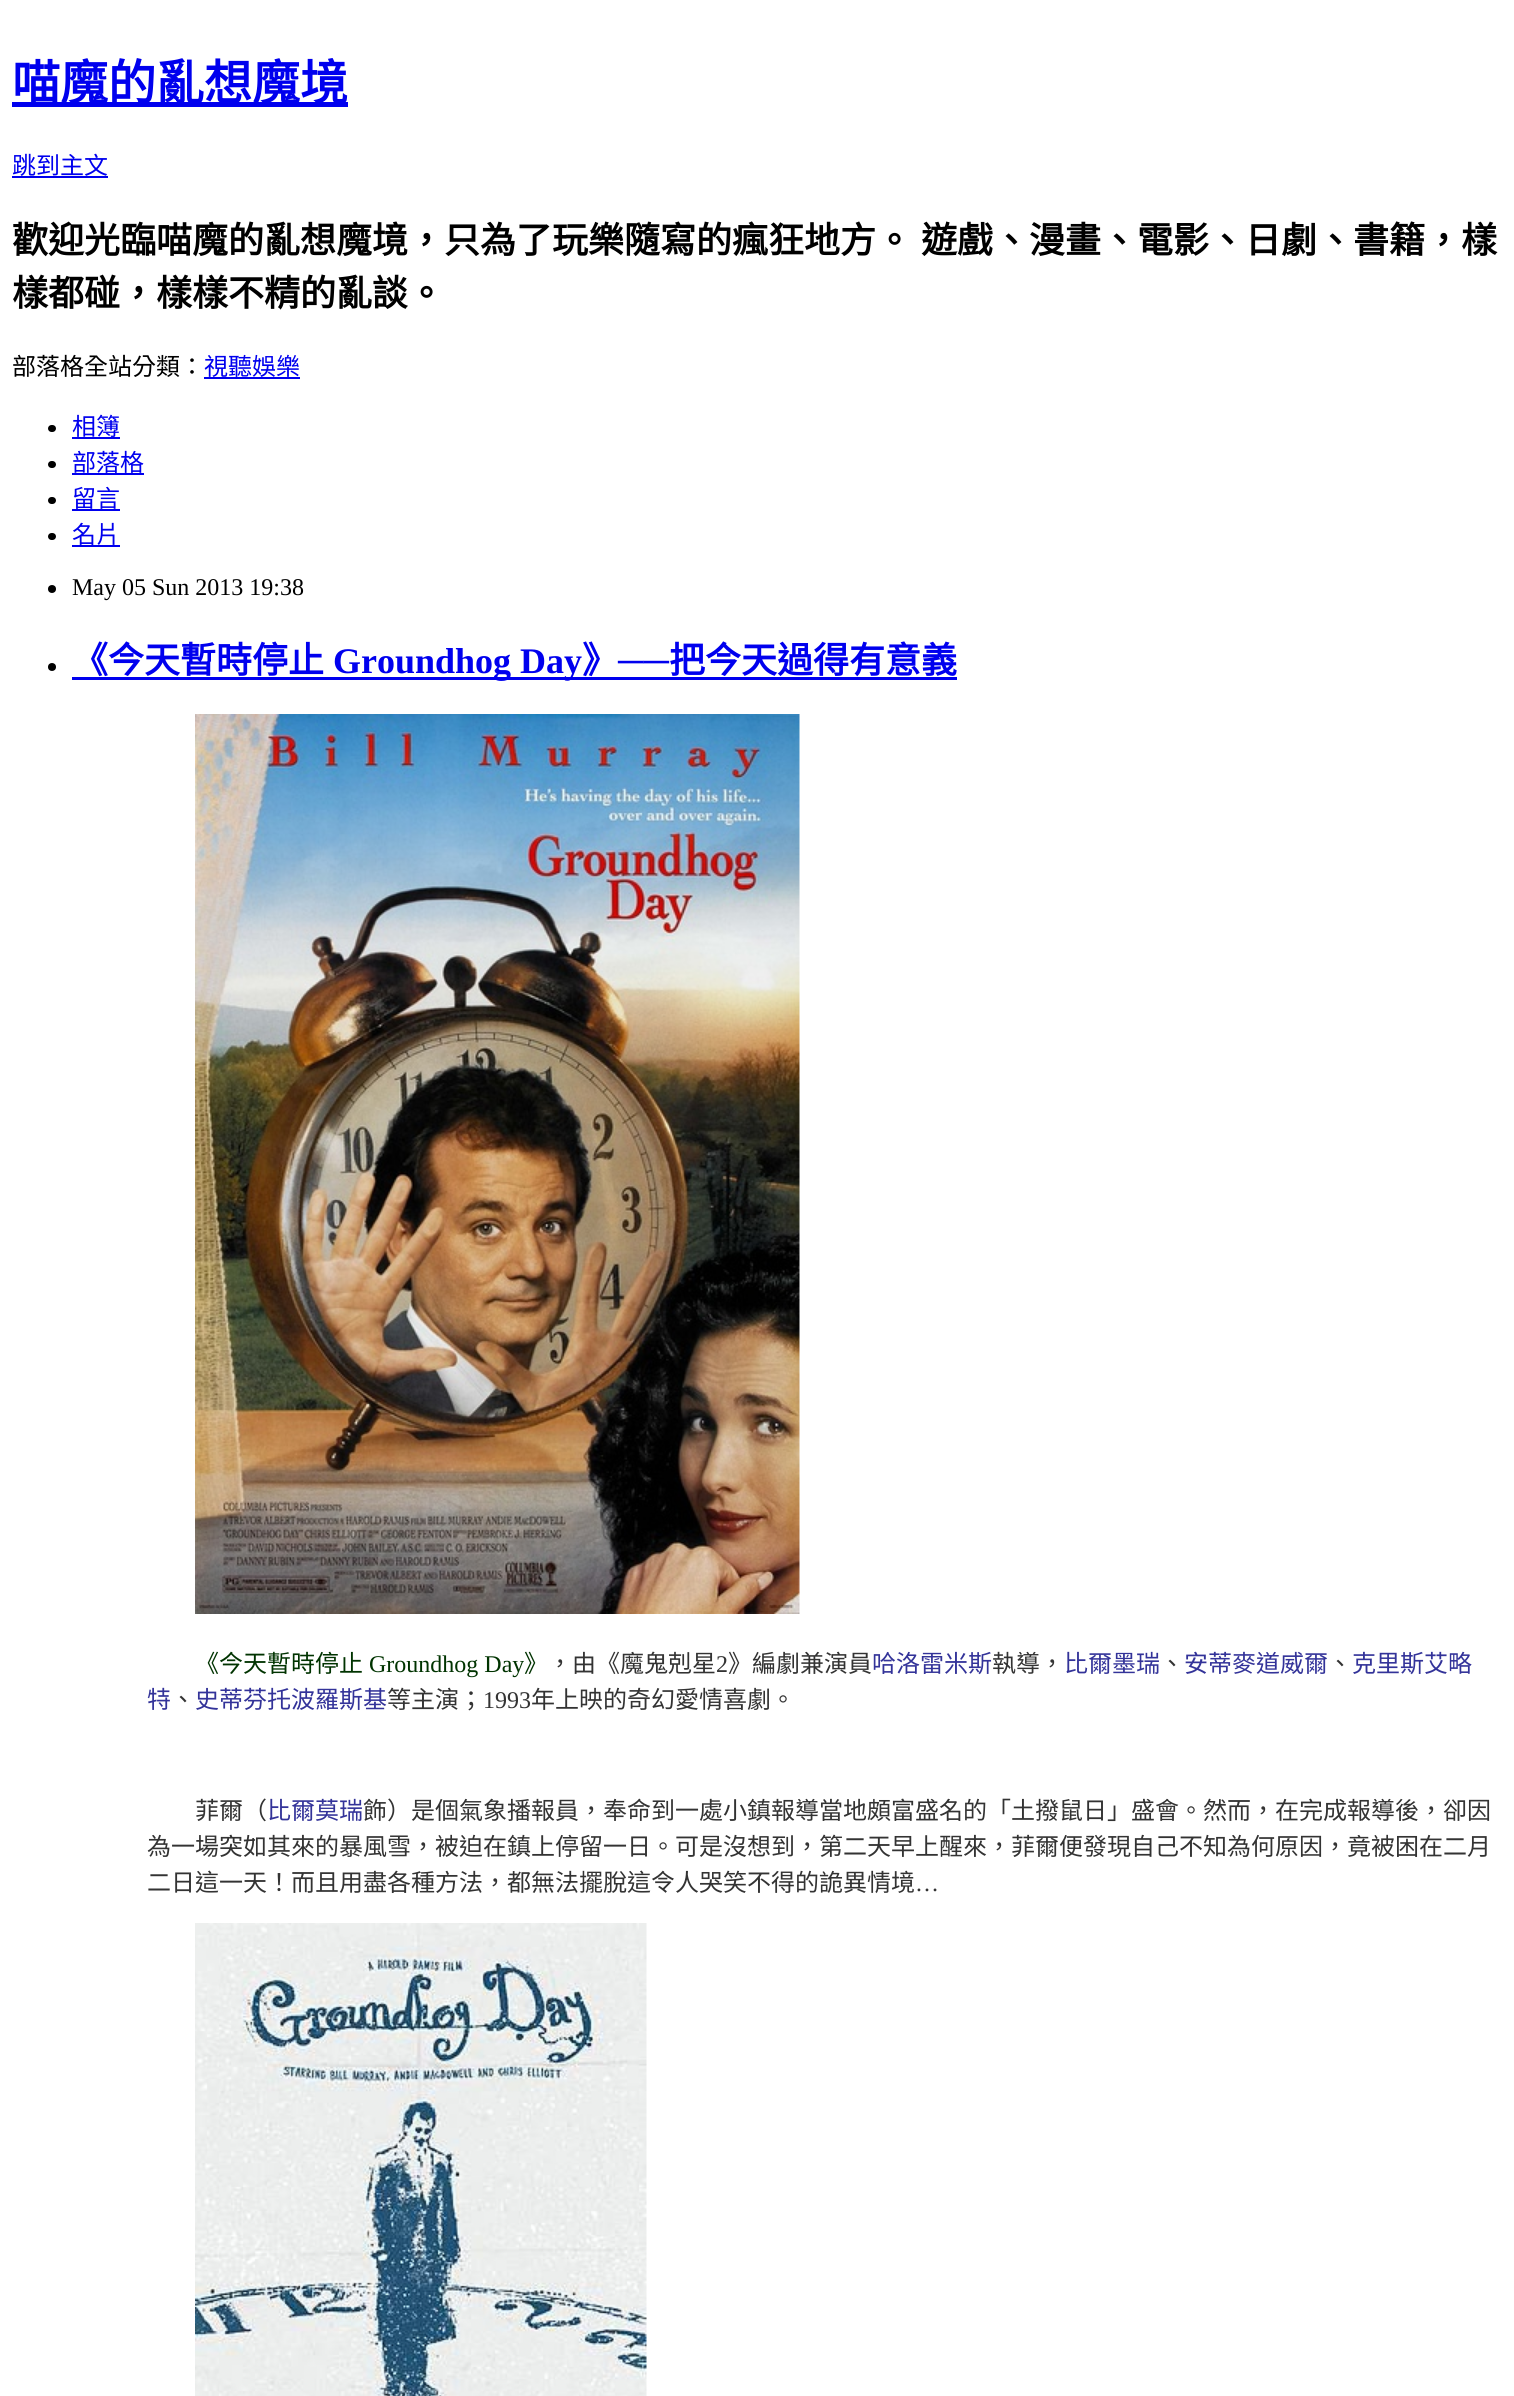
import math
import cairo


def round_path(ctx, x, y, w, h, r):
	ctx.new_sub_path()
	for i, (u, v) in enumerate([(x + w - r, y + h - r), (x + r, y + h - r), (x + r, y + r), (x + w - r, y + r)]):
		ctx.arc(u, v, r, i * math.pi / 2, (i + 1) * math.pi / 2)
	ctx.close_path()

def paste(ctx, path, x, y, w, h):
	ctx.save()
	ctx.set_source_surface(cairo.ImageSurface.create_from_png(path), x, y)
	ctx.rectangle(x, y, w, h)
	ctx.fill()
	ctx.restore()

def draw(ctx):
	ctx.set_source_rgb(1, 1, 1)
	ctx.paint()
	ctx.set_source_rgb(0, 0, 0.933)
	ctx.rectangle(12, 102, 336, 5)
	ctx.fill()
	ctx.select_font_face('Noto Sans CJK TC', cairo.FONT_SLANT_NORMAL, cairo.FONT_WEIGHT_BOLD)
	ctx.set_font_size(48)
	ctx.move_to(12, 100)
	ctx.show_text('喵魔的亂想魔境')
	ctx.select_font_face('Noto Sans CJK TC')
	ctx.set_font_size(24)
	ctx.move_to(12, 174)
	ctx.show_text('跳到主文')
	ctx.rectangle(12, 176, 96, 2)
	ctx.fill()
	ctx.select_font_face('Noto Sans CJK TC', cairo.FONT_SLANT_NORMAL, cairo.FONT_WEIGHT_BOLD)
	ctx.set_font_size(36)
	ctx.set_source_rgb(0, 0, 0)
	for x, y, s in [
		(12, 253, '歡迎光臨喵魔的亂想魔境，只為了玩樂隨寫的瘋狂地方。'),
		(921, 253, '遊戲、漫畫、電影、日劇、書籍，樣'),
		(12, 306, '樣都碰，樣樣不精的亂談。'),
	]:
		ctx.move_to(x, y)
		ctx.show_text(s)
	ctx.select_font_face('Noto Sans CJK TC')
	ctx.set_font_size(24)
	ctx.move_to(12, 375)
	ctx.show_text('部落格全站分類：')
	ctx.set_source_rgb(0, 0, 0.933)
	ctx.move_to(204, 375)
	ctx.show_text('視聽娛樂')
	ctx.rectangle(204, 377, 96, 2)
	ctx.fill()
	ctx.set_source_rgb(0, 0, 0)
	round_path(ctx, 48, 425, 8, 7, 3.5)
	ctx.fill()
	ctx.set_source_rgb(0, 0, 0.933)
	ctx.move_to(72, 435)
	ctx.show_text('相簿')
	ctx.rectangle(72, 437, 48, 2)
	ctx.fill()
	ctx.set_source_rgb(0, 0, 0)
	round_path(ctx, 48, 461, 8, 7, 3.5)
	ctx.fill()
	ctx.set_source_rgb(0, 0, 0.933)
	ctx.move_to(72, 471)
	ctx.show_text('部落格')
	ctx.rectangle(72, 473, 72, 2)
	ctx.fill()
	ctx.set_source_rgb(0, 0, 0)
	round_path(ctx, 48, 497, 8, 7, 3.5)
	ctx.fill()
	ctx.set_source_rgb(0, 0, 0.933)
	ctx.move_to(72, 507)
	ctx.show_text('留言')
	ctx.rectangle(72, 509, 48, 2)
	ctx.fill()
	ctx.set_source_rgb(0, 0, 0)
	round_path(ctx, 48, 533, 8, 7, 3.5)
	ctx.fill()
	ctx.set_source_rgb(0, 0, 0.933)
	ctx.move_to(72, 543)
	ctx.show_text('名片')
	ctx.rectangle(72, 545, 48, 2)
	ctx.fill()
	ctx.set_source_rgb(0, 0, 0)
	ctx.arc(52, 589, 4, 0, 2 * math.pi)
	ctx.fill()
	ctx.select_font_face('Liberation Serif')
	ctx.move_to(72, 595)
	ctx.show_text('May 05 Sun 2013 19:38')
	ctx.new_path()
	ctx.arc(52, 667, 4, 0, 2 * math.pi)
	ctx.fill()
	ctx.select_font_face('Noto Sans CJK TC', cairo.FONT_SLANT_NORMAL, cairo.FONT_WEIGHT_BOLD)
	ctx.set_font_size(36)
	ctx.set_source_rgb(0, 0, 0.933)
	ctx.move_to(72, 673)
	ctx.show_text('《今天暫時停止')
	ctx.rectangle(72, 677, 885, 3)
	ctx.fill()
	ctx.select_font_face('Liberation Serif', cairo.FONT_SLANT_NORMAL, cairo.FONT_WEIGHT_BOLD)
	ctx.move_to(333, 673)
	ctx.show_text('Groundhog Day')
	ctx.select_font_face('Noto Sans CJK TC', cairo.FONT_SLANT_NORMAL, cairo.FONT_WEIGHT_BOLD)
	ctx.move_to(582, 673)
	ctx.show_text('》')
	ctx.select_font_face('Liberation Serif', cairo.FONT_SLANT_NORMAL, cairo.FONT_WEIGHT_BOLD)
	ctx.move_to(618, 673)
	ctx.show_text('──')
	ctx.select_font_face('Noto Sans CJK TC', cairo.FONT_SLANT_NORMAL, cairo.FONT_WEIGHT_BOLD)
	ctx.move_to(669, 673)
	ctx.show_text('把今天過得有意義')
	paste(ctx, 'media/1.png', 195, 714, 605, 900)
	ctx.select_font_face('Noto Sans CJK TC')
	ctx.set_font_size(24)
	ctx.set_source_rgb(0, 0.2, 0)
	ctx.move_to(195, 1672)
	ctx.show_text('《今天暫時停止')
	ctx.select_font_face('Liberation Serif')
	ctx.move_to(369, 1672)
	ctx.show_text('Groundhog Day')
	ctx.select_font_face('Noto Sans CJK TC')
	ctx.move_to(524, 1672)
	ctx.show_text('》')
	ctx.set_source_rgb(0.2, 0.2, 0.2)
	ctx.move_to(548, 1672)
	ctx.show_text('，由《魔鬼剋星')
	ctx.select_font_face('Liberation Serif')
	ctx.move_to(716, 1672)
	ctx.show_text('2')
	ctx.select_font_face('Noto Sans CJK TC')
	ctx.move_to(728, 1672)
	ctx.show_text('》編劇兼演員')
	ctx.set_source_rgb(0.2, 0.2, 0.6)
	ctx.move_to(872, 1672)
	ctx.show_text('哈洛雷米斯')
	ctx.set_source_rgb(0.2, 0.2, 0.2)
	ctx.move_to(992, 1672)
	ctx.show_text('執導，')
	ctx.set_source_rgb(0.2, 0.2, 0.6)
	ctx.move_to(1064, 1672)
	ctx.show_text('比爾墨瑞')
	ctx.set_source_rgb(0.2, 0.2, 0.2)
	ctx.move_to(1160, 1672)
	ctx.show_text('、')
	ctx.set_source_rgb(0.2, 0.2, 0.6)
	ctx.move_to(1184, 1672)
	ctx.show_text('安蒂麥道威爾')
	ctx.set_source_rgb(0.2, 0.2, 0.2)
	ctx.move_to(1328, 1672)
	ctx.show_text('、')
	ctx.set_source_rgb(0.2, 0.2, 0.6)
	ctx.move_to(1352, 1672)
	ctx.show_text('克里斯艾略')
	ctx.move_to(147, 1708)
	ctx.show_text('特')
	ctx.set_source_rgb(0.2, 0.2, 0.2)
	ctx.move_to(171, 1708)
	ctx.show_text('、')
	ctx.set_source_rgb(0.2, 0.2, 0.6)
	ctx.move_to(195, 1708)
	ctx.show_text('史蒂芬托波羅斯基')
	ctx.set_source_rgb(0.2, 0.2, 0.2)
	ctx.move_to(387, 1708)
	ctx.show_text('等主演；')
	ctx.select_font_face('Liberation Serif')
	ctx.move_to(483, 1708)
	ctx.show_text('1993')
	ctx.select_font_face('Noto Sans CJK TC')
	ctx.move_to(531, 1708)
	ctx.show_text('年上映的奇幻愛情喜劇。')
	ctx.move_to(195, 1819)
	ctx.show_text('菲爾（')
	ctx.set_source_rgb(0.2, 0.2, 0.6)
	ctx.move_to(267, 1819)
	ctx.show_text('比爾莫瑞')
	ctx.set_source_rgb(0.2, 0.2, 0.2)
	for x, y, s in [
		(363, 1819, '飾）是個氣象播報員，奉命到一處小鎮報導當地頗富盛名的「土撥鼠日」盛會。然而，在完成報導後，卻因'),
		(147, 1855, '為一場突如其來的暴風雪，被迫在鎮上停留一日。可是沒想到，第二天早上醒來，菲爾便發現自己不知為何原因，竟被困在二月'),
		(147, 1891, '二日這一天！而且用盡各種方法，都無法擺脫這令人哭笑不得的詭異情境'),
	]:
		ctx.move_to(x, y)
		ctx.show_text(s)
	ctx.select_font_face('Liberation Serif')
	ctx.move_to(915, 1891)
	ctx.show_text('…')
	paste(ctx, 'media/2.png', 195, 1923, 452, 473)


surface = cairo.ImageSurface(cairo.FORMAT_RGB24, 1514, 2396)
ctx = cairo.Context(surface)
options = cairo.FontOptions()
options.set_hint_metrics(cairo.HINT_METRICS_OFF)
options.set_hint_style(cairo.HINT_STYLE_NONE)
ctx.set_font_options(options)
ctx.set_miter_limit(4)
draw(ctx)
surface.write_to_png('image.png')
